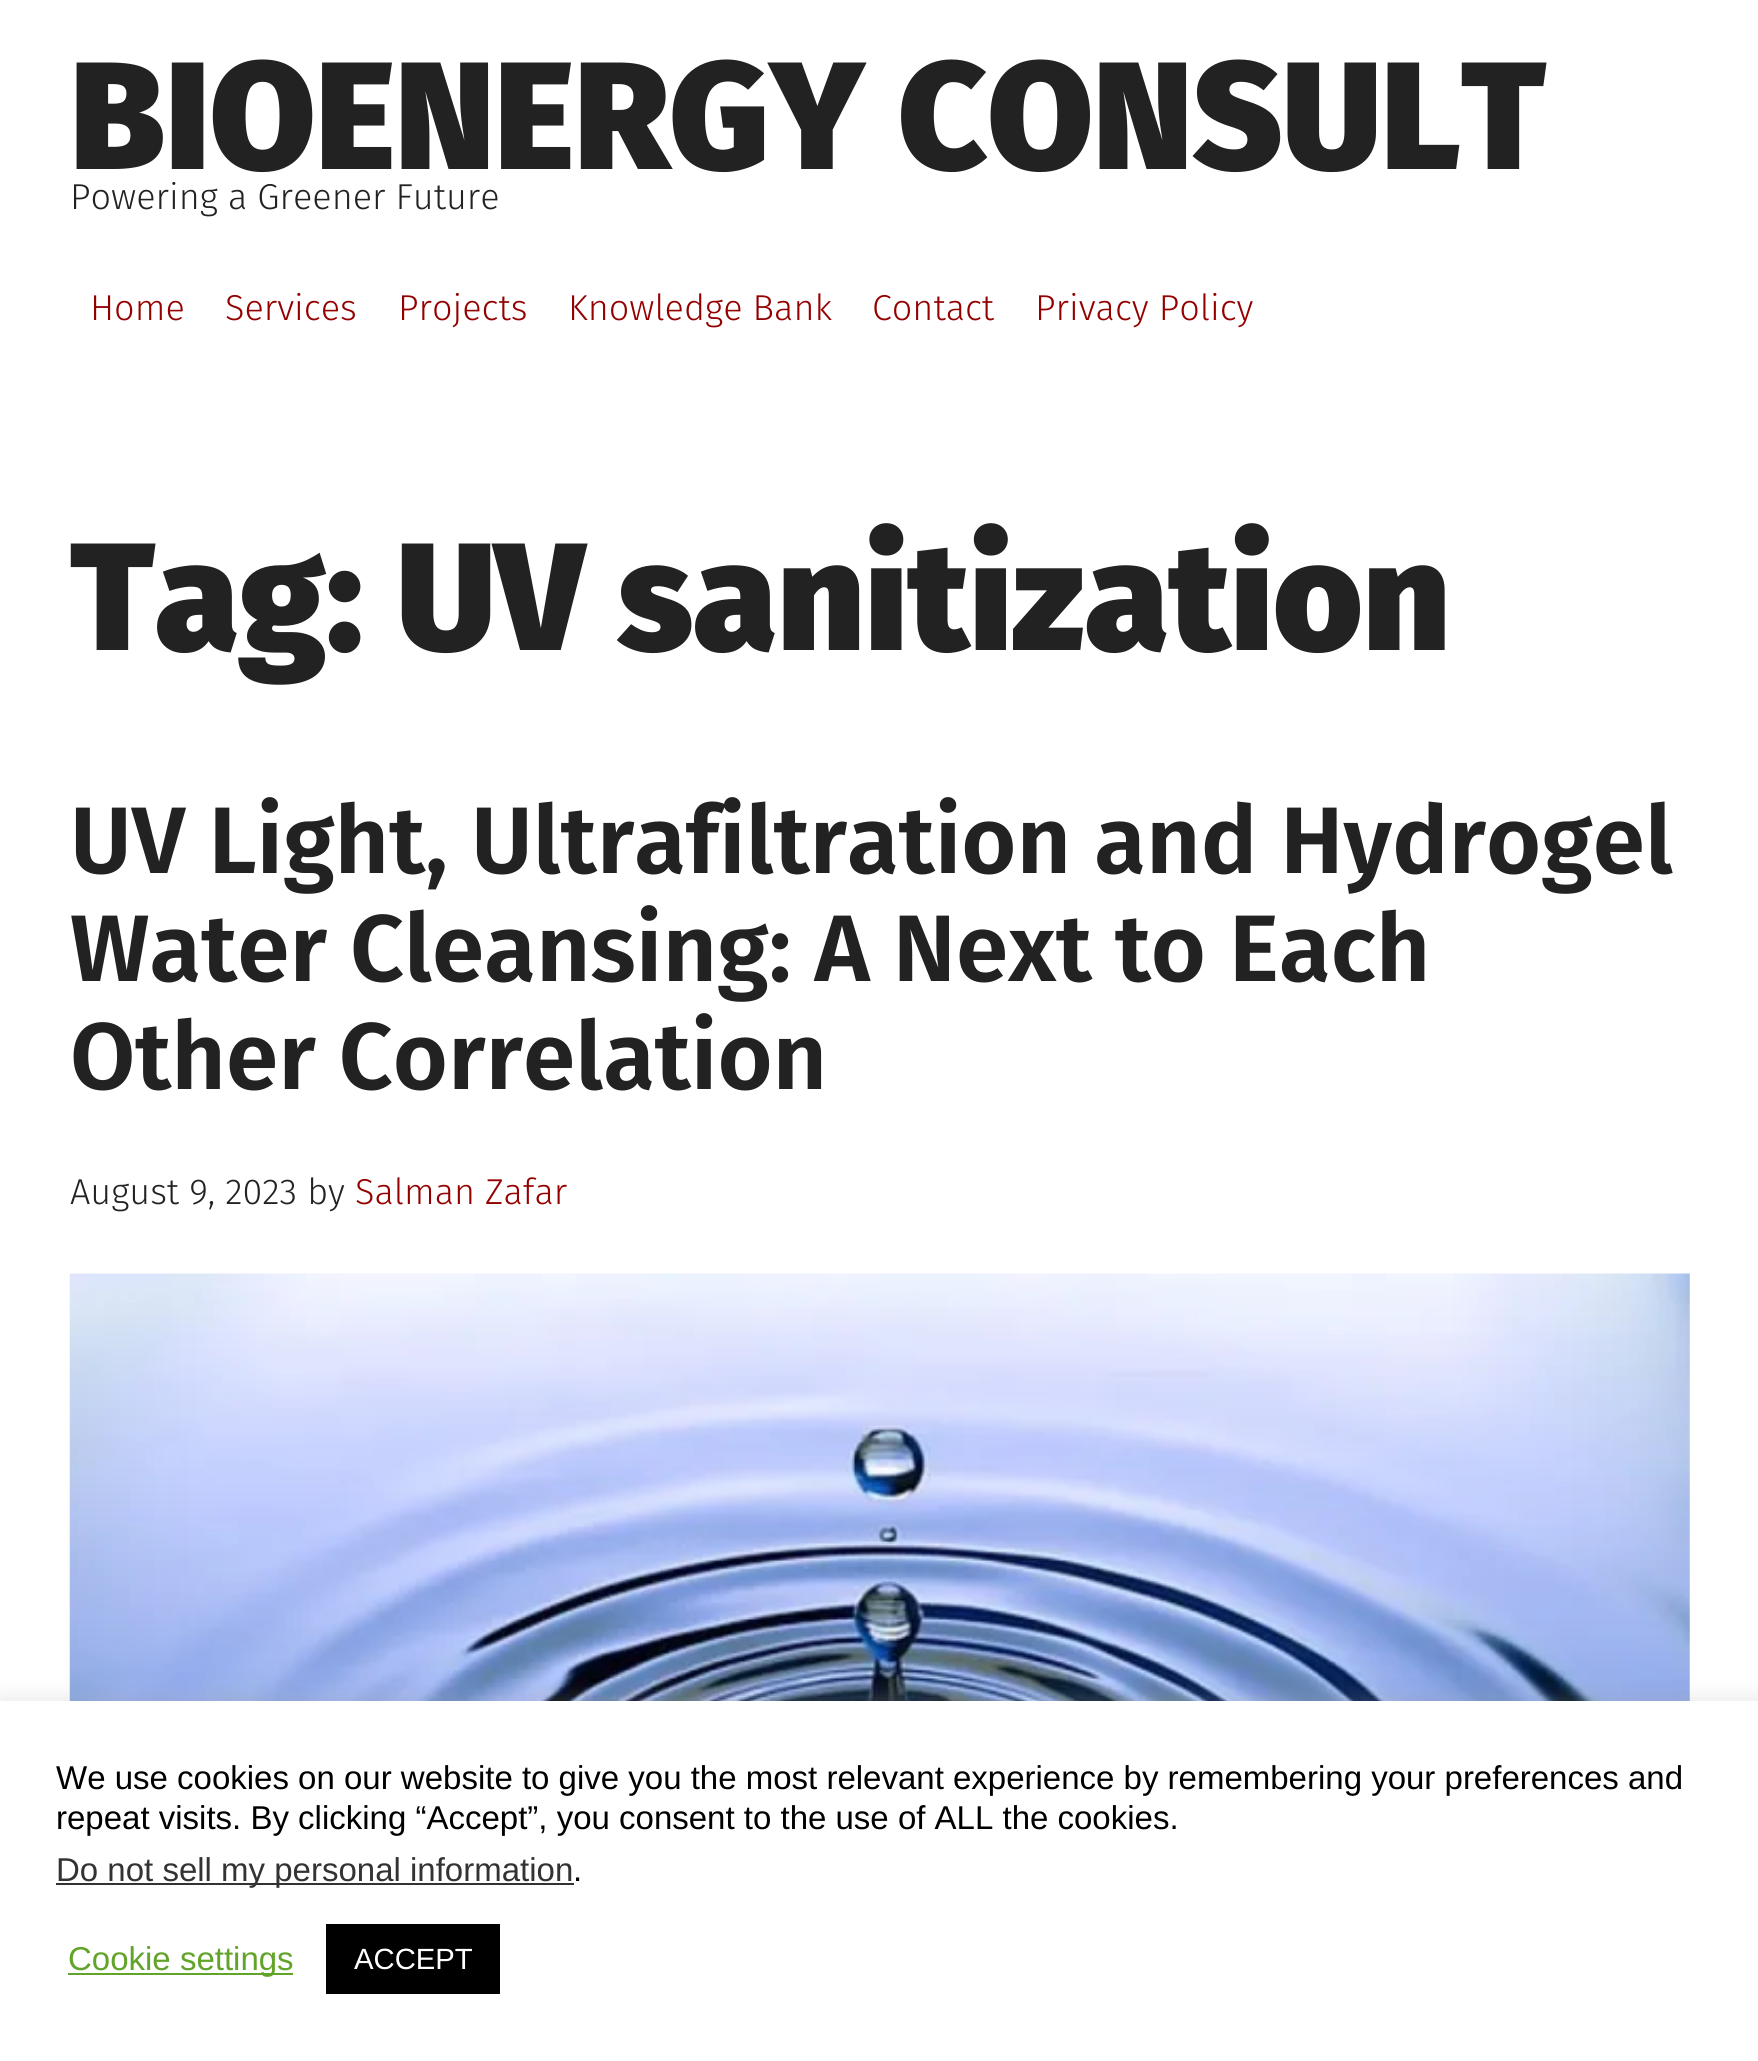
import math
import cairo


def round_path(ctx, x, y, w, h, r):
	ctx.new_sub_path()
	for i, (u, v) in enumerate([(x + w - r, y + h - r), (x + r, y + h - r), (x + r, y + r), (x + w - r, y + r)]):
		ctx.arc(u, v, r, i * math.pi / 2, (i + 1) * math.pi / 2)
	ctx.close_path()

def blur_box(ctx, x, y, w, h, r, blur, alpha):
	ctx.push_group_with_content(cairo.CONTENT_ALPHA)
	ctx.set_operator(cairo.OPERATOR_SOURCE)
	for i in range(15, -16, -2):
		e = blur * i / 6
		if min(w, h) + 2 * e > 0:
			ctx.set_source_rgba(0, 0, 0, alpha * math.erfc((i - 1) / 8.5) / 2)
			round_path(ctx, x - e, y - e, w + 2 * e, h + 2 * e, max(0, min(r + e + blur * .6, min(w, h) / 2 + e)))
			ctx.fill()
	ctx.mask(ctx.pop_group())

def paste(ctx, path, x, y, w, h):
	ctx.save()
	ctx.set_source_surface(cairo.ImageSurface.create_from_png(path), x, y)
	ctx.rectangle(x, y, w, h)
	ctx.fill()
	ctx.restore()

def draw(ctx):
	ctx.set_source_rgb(1, 1, 1)
	ctx.paint()
	ctx.select_font_face('Fira Sans Black')
	ctx.set_font_size(153)
	ctx.set_source_rgb(0.133, 0.133, 0.133)
	ctx.move_to(70, 169)
	ctx.show_text('BIOENERGY CONSULT')
	ctx.select_font_face('Fira Sans Light')
	ctx.set_font_size(36)
	ctx.move_to(70, 209)
	ctx.show_text('Powering a Greener Future')
	ctx.set_source_rgb(0.58, 0, 0)
	for x, y, s in [
		(90, 320, 'Home'),
		(225, 320, 'Services'),
		(398, 320, 'Projects'),
		(568, 320, 'Knowledge Bank'),
		(872, 320, 'Contact'),
		(1035, 320, 'Privacy Policy'),
	]:
		ctx.move_to(x, y)
		ctx.show_text(s)
	ctx.select_font_face('Fira Sans Black')
	ctx.set_font_size(153)
	ctx.set_source_rgb(0.133, 0.133, 0.133)
	ctx.move_to(70, 650)
	ctx.show_text('Tag: UV sanitization')
	ctx.select_font_face('Fira Sans SemiBold')
	ctx.set_font_size(94.5)
	for x, y, s in [
		(70, 873, 'UV Light, Ultrafiltration and Hydrogel'),
		(70, 981, 'Water Cleansing: A Next to Each'),
		(70, 1089, 'Other Correlation'),
	]:
		ctx.move_to(x, y)
		ctx.show_text(s)
	ctx.select_font_face('Fira Sans Light')
	ctx.set_font_size(36)
	ctx.move_to(70, 1204)
	ctx.show_text('August 9, 2023 by')
	ctx.set_source_rgb(0.58, 0, 0)
	ctx.move_to(355, 1204)
	ctx.show_text('Salman Zafar')
	paste(ctx, 'media/1.png', 69, 1273, 1621, 428)
	ctx.set_source_rgb(0.675, 0.671, 0.671)
	blur_box(ctx, 0, 1699, 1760, 360, 0, 11, 0.3)
	ctx.set_source_rgb(1, 1, 1)
	ctx.rectangle(0, 1701, 1758, 360)
	ctx.fill()
	ctx.select_font_face('Liberation Sans')
	ctx.set_font_size(33)
	ctx.set_source_rgb(0, 0, 0)
	ctx.move_to(56, 1789)
	ctx.show_text('We use cookies on our website to give you the most relevant experience by remembering your preferences and')
	ctx.move_to(56, 1829)
	ctx.show_text('repeat visits. By clicking “Accept”, you consent to the use of ALL the cookies.')
	ctx.set_source_rgb(0.2, 0.2, 0.2)
	ctx.rectangle(56, 1883, 518, 2)
	ctx.fill()
	ctx.move_to(56, 1881)
	ctx.show_text('Do not sell my personal information')
	ctx.set_source_rgb(0, 0, 0)
	ctx.move_to(573, 1881)
	ctx.show_text('.')
	ctx.set_source_rgb(0.384, 0.639, 0.161)
	ctx.rectangle(68, 1973, 225, 2)
	ctx.fill()
	ctx.move_to(68, 1970)
	ctx.show_text('Cookie settings')
	ctx.set_source_rgb(0, 0, 0)
	ctx.rectangle(326, 1924, 174, 70)
	ctx.fill()
	ctx.set_font_size(29.25)
	ctx.set_source_rgb(1, 1, 1)
	ctx.move_to(354, 1969)
	ctx.show_text('ACCEPT')


surface = cairo.ImageSurface(cairo.FORMAT_RGB24, 1758, 2061)
ctx = cairo.Context(surface)
options = cairo.FontOptions()
options.set_hint_metrics(cairo.HINT_METRICS_OFF)
options.set_hint_style(cairo.HINT_STYLE_NONE)
ctx.set_font_options(options)
ctx.set_miter_limit(4)
draw(ctx)
surface.write_to_png('image.png')
